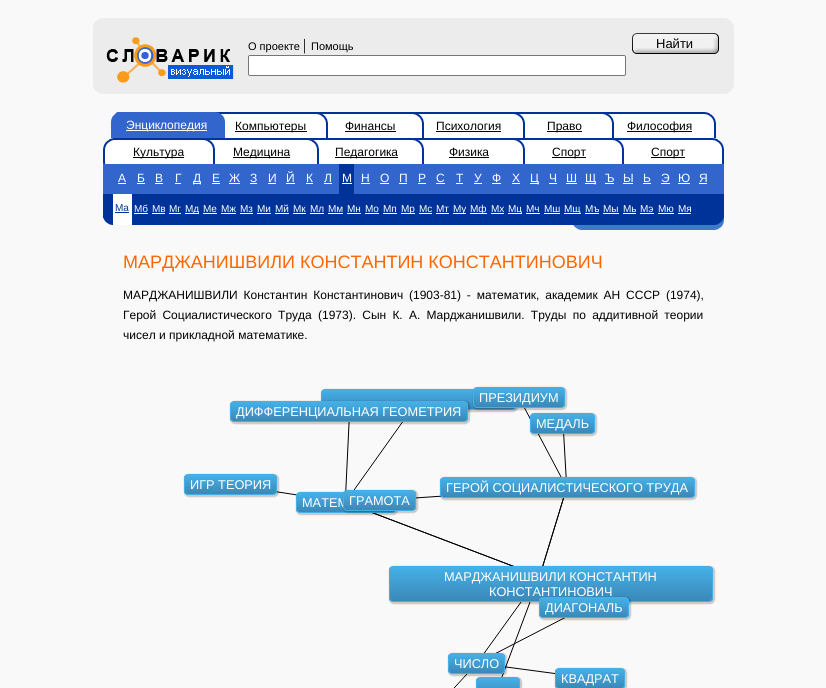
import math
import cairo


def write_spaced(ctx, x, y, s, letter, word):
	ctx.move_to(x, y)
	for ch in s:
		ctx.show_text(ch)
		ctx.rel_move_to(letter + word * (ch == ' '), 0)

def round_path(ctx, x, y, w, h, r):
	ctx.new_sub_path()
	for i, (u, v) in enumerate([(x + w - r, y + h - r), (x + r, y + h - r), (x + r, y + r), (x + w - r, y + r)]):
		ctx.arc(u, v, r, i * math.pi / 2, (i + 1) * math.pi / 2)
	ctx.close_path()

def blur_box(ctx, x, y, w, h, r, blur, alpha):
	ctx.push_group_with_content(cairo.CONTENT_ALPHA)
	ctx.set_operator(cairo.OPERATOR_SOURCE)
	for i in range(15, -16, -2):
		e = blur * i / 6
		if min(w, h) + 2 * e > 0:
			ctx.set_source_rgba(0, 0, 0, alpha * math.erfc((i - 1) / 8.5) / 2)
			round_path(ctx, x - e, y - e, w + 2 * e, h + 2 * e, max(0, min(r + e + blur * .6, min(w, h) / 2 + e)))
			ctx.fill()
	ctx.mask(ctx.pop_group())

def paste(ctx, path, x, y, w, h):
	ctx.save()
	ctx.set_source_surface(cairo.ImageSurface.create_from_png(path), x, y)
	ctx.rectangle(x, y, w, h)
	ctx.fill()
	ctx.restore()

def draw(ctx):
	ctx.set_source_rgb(0.976, 0.976, 0.976)
	ctx.paint()
	paste(ctx, 'media/1.png', 93, 18, 10, 10)
	ctx.set_source_rgb(0.925, 0.925, 0.925)
	ctx.rectangle(103, 18, 621, 10)
	ctx.fill()
	paste(ctx, 'media/2.png', 724, 18, 10, 10)
	ctx.rectangle(93, 28, 641, 56)
	ctx.fill()
	paste(ctx, 'media/3.png', 106, 37, 128, 46)
	ctx.select_font_face('Liberation Sans')
	ctx.set_font_size(11)
	ctx.set_source_rgb(0, 0, 0)
	ctx.move_to(248, 50)
	ctx.show_text('О проекте')
	ctx.select_font_face('Liberation Serif')
	ctx.set_font_size(16)
	ctx.move_to(303, 50)
	ctx.show_text('|')
	ctx.select_font_face('Liberation Sans')
	ctx.set_font_size(11)
	ctx.move_to(311, 50)
	ctx.show_text('Помощь')
	ctx.set_source_rgb(1, 1, 1)
	round_path(ctx, 248.5, 55.5, 377, 20, 1.5)
	ctx.fill_preserve()
	ctx.set_source_rgb(0.463, 0.463, 0.463)
	ctx.set_line_width(1)
	ctx.stroke()
	paste(ctx, 'media/4.png', 632, 33, 87, 21)
	ctx.set_font_size(13)
	ctx.set_source_rgb(0, 0, 0)
	ctx.move_to(656, 48)
	ctx.show_text('Найти')
	paste(ctx, 'media/5.png', 93, 84, 10, 10)
	ctx.set_source_rgb(0.925, 0.925, 0.925)
	ctx.rectangle(103, 84, 621, 10)
	ctx.fill()
	paste(ctx, 'media/6.png', 724, 84, 10, 10)
	paste(ctx, 'media/7.png', 111, 112, 10, 26)
	ctx.set_source_rgb(0.2, 0.4, 0.8)
	ctx.rectangle(121, 112, 92, 26)
	ctx.fill()
	ctx.set_source_rgb(1, 1, 1)
	ctx.rectangle(126, 130, 81, 1)
	ctx.fill()
	ctx.set_font_size(12)
	ctx.move_to(126, 129)
	ctx.show_text('Энциклопедия')
	paste(ctx, 'media/8.png', 213, 112, 12, 26)
	ctx.rectangle(225, 114, 92, 24)
	ctx.fill()
	ctx.set_source_rgb(0, 0.2, 0.6)
	ctx.rectangle(225, 112, 92, 2)
	ctx.fill()
	ctx.set_source_rgb(0, 0, 0)
	ctx.rectangle(235, 131, 72, 1)
	ctx.fill()
	ctx.move_to(235, 130)
	ctx.show_text('Компьютеры')
	paste(ctx, 'media/9.png', 317, 112, 11, 26)
	ctx.set_source_rgb(1, 1, 1)
	ctx.rectangle(328, 114, 85, 24)
	ctx.fill()
	ctx.set_source_rgb(0, 0.2, 0.6)
	ctx.rectangle(328, 112, 85, 2)
	ctx.fill()
	ctx.set_source_rgb(0, 0, 0)
	ctx.move_to(345, 130)
	ctx.show_text('Финансы')
	ctx.rectangle(345, 131, 51, 1)
	ctx.fill()
	paste(ctx, 'media/9.png', 413, 112, 11, 26)
	ctx.set_source_rgb(1, 1, 1)
	ctx.rectangle(424, 114, 90, 24)
	ctx.fill()
	ctx.set_source_rgb(0, 0.2, 0.6)
	ctx.rectangle(424, 112, 90, 2)
	ctx.fill()
	ctx.set_source_rgb(0, 0, 0)
	ctx.move_to(436, 130)
	ctx.show_text('Психология')
	ctx.rectangle(436, 131, 65, 1)
	ctx.fill()
	paste(ctx, 'media/9.png', 514, 112, 11, 26)
	ctx.set_source_rgb(1, 1, 1)
	ctx.rectangle(525, 114, 78, 24)
	ctx.fill()
	ctx.set_source_rgb(0, 0.2, 0.6)
	ctx.rectangle(525, 112, 78, 2)
	ctx.fill()
	ctx.set_source_rgb(0, 0, 0)
	ctx.rectangle(547, 131, 35, 1)
	ctx.fill()
	ctx.move_to(547, 130)
	ctx.show_text('Право')
	paste(ctx, 'media/9.png', 603, 112, 11, 26)
	ctx.set_source_rgb(1, 1, 1)
	ctx.rectangle(614, 114, 91, 24)
	ctx.fill()
	ctx.set_source_rgb(0, 0.2, 0.6)
	ctx.rectangle(614, 112, 91, 2)
	ctx.fill()
	ctx.set_source_rgb(0, 0, 0)
	ctx.rectangle(627, 131, 65, 1)
	ctx.fill()
	ctx.move_to(627, 130)
	ctx.show_text('Философия')
	paste(ctx, 'media/10.png', 705, 112, 11, 26)
	paste(ctx, 'media/11.png', 103, 138, 10, 26)
	ctx.set_source_rgb(1, 1, 1)
	ctx.rectangle(113, 140, 91, 24)
	ctx.fill()
	ctx.set_source_rgb(0, 0.2, 0.6)
	ctx.rectangle(113, 138, 91, 2)
	ctx.fill()
	ctx.set_source_rgb(0, 0, 0)
	ctx.rectangle(133, 157, 51, 1)
	ctx.fill()
	ctx.move_to(133, 156)
	ctx.show_text('Культура')
	paste(ctx, 'media/9.png', 204, 138, 11, 26)
	ctx.set_source_rgb(1, 1, 1)
	ctx.rectangle(215, 140, 93, 24)
	ctx.fill()
	ctx.set_source_rgb(0, 0.2, 0.6)
	ctx.rectangle(215, 138, 93, 2)
	ctx.fill()
	ctx.set_source_rgb(0, 0, 0)
	ctx.rectangle(233, 157, 57, 1)
	ctx.fill()
	ctx.move_to(233, 156)
	ctx.show_text('Медицина')
	paste(ctx, 'media/9.png', 308, 138, 11, 26)
	ctx.set_source_rgb(1, 1, 1)
	ctx.rectangle(319, 140, 94, 24)
	ctx.fill()
	ctx.set_source_rgb(0, 0.2, 0.6)
	ctx.rectangle(319, 138, 94, 2)
	ctx.fill()
	ctx.set_source_rgb(0, 0, 0)
	ctx.rectangle(335, 157, 63, 1)
	ctx.fill()
	ctx.move_to(335, 156)
	ctx.show_text('Педагогика')
	paste(ctx, 'media/9.png', 413, 138, 11, 26)
	ctx.set_source_rgb(1, 1, 1)
	ctx.rectangle(424, 140, 90, 24)
	ctx.fill()
	ctx.set_source_rgb(0, 0.2, 0.6)
	ctx.rectangle(424, 138, 90, 2)
	ctx.fill()
	ctx.set_source_rgb(0, 0, 0)
	ctx.move_to(449, 156)
	ctx.show_text('Физика')
	ctx.rectangle(449, 157, 40, 1)
	ctx.fill()
	paste(ctx, 'media/9.png', 514, 138, 11, 26)
	ctx.set_source_rgb(1, 1, 1)
	ctx.rectangle(525, 140, 88, 24)
	ctx.fill()
	ctx.set_source_rgb(0, 0.2, 0.6)
	ctx.rectangle(525, 138, 88, 2)
	ctx.fill()
	ctx.set_source_rgb(0, 0, 0)
	ctx.rectangle(552, 157, 34, 1)
	ctx.fill()
	ctx.move_to(552, 156)
	ctx.show_text('Спорт')
	paste(ctx, 'media/9.png', 613, 138, 11, 26)
	ctx.set_source_rgb(1, 1, 1)
	ctx.rectangle(624, 140, 89, 24)
	ctx.fill()
	ctx.set_source_rgb(0, 0.2, 0.6)
	ctx.rectangle(624, 138, 89, 2)
	ctx.fill()
	ctx.set_source_rgb(0, 0, 0)
	ctx.rectangle(651, 157, 34, 1)
	ctx.fill()
	ctx.move_to(651, 156)
	ctx.show_text('Спорт')
	paste(ctx, 'media/10.png', 713, 138, 11, 26)
	ctx.set_source_rgb(0.2, 0.4, 0.8)
	ctx.rectangle(103, 164, 621, 30)
	ctx.fill()
	ctx.set_source_rgb(1, 1, 1)
	ctx.move_to(118, 182)
	ctx.show_text('А')
	ctx.rectangle(118, 183, 8, 1)
	ctx.fill()
	ctx.move_to(137, 182)
	ctx.show_text('Б')
	ctx.rectangle(137, 183, 8, 1)
	ctx.fill()
	ctx.move_to(155, 182)
	ctx.show_text('В')
	ctx.rectangle(155, 183, 8, 1)
	ctx.fill()
	ctx.move_to(175, 182)
	ctx.show_text('Г')
	ctx.rectangle(175, 183, 6, 1)
	ctx.fill()
	ctx.rectangle(193, 183, 8, 1)
	ctx.fill()
	ctx.move_to(193, 182)
	ctx.show_text('Д')
	ctx.move_to(212, 182)
	ctx.show_text('Е')
	ctx.rectangle(212, 183, 8, 1)
	ctx.fill()
	ctx.move_to(229, 182)
	ctx.show_text('Ж')
	ctx.rectangle(229, 183, 11, 1)
	ctx.fill()
	ctx.move_to(250, 182)
	ctx.show_text('З')
	ctx.rectangle(250, 183, 7, 1)
	ctx.fill()
	ctx.move_to(268, 182)
	ctx.show_text('И')
	ctx.rectangle(268, 183, 8, 1)
	ctx.fill()
	ctx.move_to(286, 182)
	ctx.show_text('Й')
	ctx.rectangle(286, 183, 9, 1)
	ctx.fill()
	ctx.move_to(306, 182)
	ctx.show_text('К')
	ctx.rectangle(306, 183, 7, 1)
	ctx.fill()
	ctx.move_to(324, 182)
	ctx.show_text('Л')
	ctx.rectangle(324, 183, 8, 1)
	ctx.fill()
	ctx.set_source_rgb(0, 0.2, 0.6)
	ctx.rectangle(339, 164, 15, 30)
	ctx.fill()
	ctx.set_source_rgb(1, 1, 1)
	ctx.move_to(342, 182)
	ctx.show_text('М')
	ctx.rectangle(342, 183, 10, 1)
	ctx.fill()
	ctx.move_to(361, 182)
	ctx.show_text('Н')
	ctx.rectangle(361, 183, 9, 1)
	ctx.fill()
	ctx.move_to(380, 182)
	ctx.show_text('О')
	ctx.rectangle(380, 183, 9, 1)
	ctx.fill()
	ctx.move_to(399, 182)
	ctx.show_text('П')
	ctx.rectangle(399, 183, 8, 1)
	ctx.fill()
	ctx.move_to(418, 182)
	ctx.show_text('Р')
	ctx.rectangle(418, 183, 8, 1)
	ctx.fill()
	ctx.move_to(436, 182)
	ctx.show_text('С')
	ctx.rectangle(436, 183, 9, 1)
	ctx.fill()
	ctx.move_to(456, 182)
	ctx.show_text('Т')
	ctx.rectangle(456, 183, 7, 1)
	ctx.fill()
	ctx.move_to(474, 182)
	ctx.show_text('У')
	ctx.rectangle(474, 183, 8, 1)
	ctx.fill()
	ctx.move_to(492, 182)
	ctx.show_text('Ф')
	ctx.rectangle(492, 183, 9, 1)
	ctx.fill()
	ctx.move_to(512, 182)
	ctx.show_text('Х')
	ctx.rectangle(512, 183, 8, 1)
	ctx.fill()
	ctx.rectangle(530, 183, 9, 1)
	ctx.fill()
	ctx.move_to(530, 182)
	ctx.show_text('Ц')
	ctx.move_to(549, 182)
	ctx.show_text('Ч')
	ctx.rectangle(549, 183, 8, 1)
	ctx.fill()
	ctx.move_to(566, 182)
	ctx.show_text('Ш')
	ctx.rectangle(566, 183, 11, 1)
	ctx.fill()
	ctx.rectangle(585, 183, 11, 1)
	ctx.fill()
	ctx.move_to(585, 182)
	ctx.show_text('Щ')
	ctx.move_to(605, 182)
	ctx.show_text('Ъ')
	ctx.rectangle(605, 183, 9, 1)
	ctx.fill()
	ctx.move_to(623, 182)
	ctx.show_text('Ы')
	ctx.rectangle(623, 183, 10, 1)
	ctx.fill()
	ctx.move_to(643, 182)
	ctx.show_text('Ь')
	ctx.rectangle(643, 183, 8, 1)
	ctx.fill()
	ctx.move_to(661, 182)
	ctx.show_text('Э')
	ctx.rectangle(661, 183, 9, 1)
	ctx.fill()
	ctx.move_to(678, 182)
	ctx.show_text('Ю')
	ctx.rectangle(678, 183, 12, 1)
	ctx.fill()
	ctx.move_to(699, 182)
	ctx.show_text('Я')
	ctx.rectangle(699, 183, 8, 1)
	ctx.fill()
	ctx.set_source_rgb(0, 0.2, 0.6)
	ctx.rectangle(103, 194, 610, 31)
	ctx.fill()
	ctx.set_source_rgb(1, 1, 1)
	ctx.rectangle(113, 194, 19, 31)
	ctx.fill()
	ctx.set_font_size(10)
	ctx.set_source_rgb(0, 0.2, 0.6)
	ctx.move_to(115, 211)
	ctx.show_text('Ма')
	ctx.rectangle(115, 212, 14, 1)
	ctx.fill()
	ctx.set_source_rgb(1, 1, 1)
	ctx.move_to(134, 212)
	ctx.show_text('Мб')
	ctx.rectangle(134, 213, 14, 1)
	ctx.fill()
	ctx.move_to(152, 212)
	ctx.show_text('Мв')
	ctx.rectangle(152, 213, 13, 1)
	ctx.fill()
	ctx.move_to(169, 212)
	ctx.show_text('Мг')
	ctx.rectangle(169, 213, 12, 1)
	ctx.fill()
	ctx.rectangle(185, 213, 14, 1)
	ctx.fill()
	ctx.move_to(185, 212)
	ctx.show_text('Мд')
	ctx.move_to(203, 212)
	ctx.show_text('Ме')
	ctx.rectangle(203, 213, 14, 1)
	ctx.fill()
	ctx.move_to(221, 212)
	ctx.show_text('Мж')
	ctx.rectangle(221, 213, 15, 1)
	ctx.fill()
	ctx.move_to(240, 212)
	ctx.show_text('Мз')
	ctx.rectangle(240, 213, 13, 1)
	ctx.fill()
	ctx.move_to(257, 212)
	ctx.show_text('Ми')
	ctx.rectangle(257, 213, 14, 1)
	ctx.fill()
	ctx.move_to(275, 212)
	ctx.show_text('Мй')
	ctx.rectangle(275, 213, 14, 1)
	ctx.fill()
	ctx.move_to(293, 212)
	ctx.show_text('Мк')
	ctx.rectangle(293, 213, 13, 1)
	ctx.fill()
	ctx.move_to(310, 212)
	ctx.show_text('Мл')
	ctx.rectangle(310, 213, 14, 1)
	ctx.fill()
	ctx.move_to(328, 212)
	ctx.show_text('Мм')
	ctx.rectangle(328, 213, 15, 1)
	ctx.fill()
	ctx.move_to(347, 212)
	ctx.show_text('Мн')
	ctx.rectangle(347, 213, 14, 1)
	ctx.fill()
	ctx.move_to(365, 212)
	ctx.show_text('Мо')
	ctx.rectangle(365, 213, 14, 1)
	ctx.fill()
	ctx.move_to(383, 212)
	ctx.show_text('Мп')
	ctx.rectangle(383, 213, 14, 1)
	ctx.fill()
	ctx.rectangle(401, 213, 14, 1)
	ctx.fill()
	ctx.move_to(401, 212)
	ctx.show_text('Мр')
	ctx.move_to(419, 212)
	ctx.show_text('Мс')
	ctx.rectangle(419, 213, 13, 1)
	ctx.fill()
	ctx.move_to(436, 212)
	ctx.show_text('Мт')
	ctx.rectangle(436, 213, 13, 1)
	ctx.fill()
	ctx.rectangle(453, 213, 13, 1)
	ctx.fill()
	ctx.move_to(453, 212)
	ctx.show_text('Му')
	ctx.rectangle(470, 213, 17, 1)
	ctx.fill()
	ctx.move_to(470, 212)
	ctx.show_text('Мф')
	ctx.move_to(491, 212)
	ctx.show_text('Мх')
	ctx.rectangle(491, 213, 13, 1)
	ctx.fill()
	ctx.rectangle(508, 213, 14, 1)
	ctx.fill()
	ctx.move_to(508, 212)
	ctx.show_text('Мц')
	ctx.move_to(526, 212)
	ctx.show_text('Мч')
	ctx.rectangle(526, 213, 14, 1)
	ctx.fill()
	ctx.move_to(544, 212)
	ctx.show_text('Мш')
	ctx.rectangle(544, 213, 16, 1)
	ctx.fill()
	ctx.rectangle(564, 213, 17, 1)
	ctx.fill()
	ctx.move_to(564, 212)
	ctx.show_text('Мщ')
	ctx.move_to(585, 212)
	ctx.show_text('Мъ')
	ctx.rectangle(585, 213, 14, 1)
	ctx.fill()
	ctx.move_to(603, 212)
	ctx.show_text('Мы')
	ctx.rectangle(603, 213, 16, 1)
	ctx.fill()
	ctx.move_to(623, 212)
	ctx.show_text('Мь')
	ctx.rectangle(623, 213, 13, 1)
	ctx.fill()
	ctx.move_to(640, 212)
	ctx.show_text('Мэ')
	ctx.rectangle(640, 213, 14, 1)
	ctx.fill()
	ctx.move_to(658, 212)
	ctx.show_text('Мю')
	ctx.rectangle(658, 213, 16, 1)
	ctx.fill()
	ctx.move_to(678, 212)
	ctx.show_text('Мя')
	ctx.rectangle(678, 213, 13, 1)
	ctx.fill()
	ctx.set_source_rgb(0, 0.2, 0.6)
	ctx.rectangle(713, 194, 11, 24)
	ctx.fill()
	paste(ctx, 'media/12.png', 713, 218, 11, 12)
	paste(ctx, 'media/13.png', 103, 218, 9, 7)
	paste(ctx, 'media/14.png', 573, 225, 140, 5)
	ctx.set_font_size(18)
	ctx.set_source_rgb(1, 0.4, 0)
	ctx.move_to(123, 268)
	ctx.show_text('МАРДЖАНИШВИЛИ КОНСТАНТИН КОНСТАНТИНОВИЧ')
	ctx.set_font_size(12)
	ctx.set_source_rgb(0, 0, 0)
	write_spaced(ctx, 123, 299, 'МАРДЖАНИШВИЛИ Константин Константинович (1903-81) - математик, академик АН СССР (1974),', 0, 2.5)
	write_spaced(ctx, 123, 319, 'Герой Социалистического Труда (1973). Сын К. А. Марджанишвили. Труды по аддитивной теории', 0, 2.9)
	ctx.move_to(123, 339)
	ctx.show_text('чисел и прикладной математике.')
	paste(ctx, 'media/15.png', 276, 408, 291, 280)
	ctx.set_source_rgb(0, 0, 0)
	blur_box(ctx, 321, 389, 197, 23, 5, 0.5, 0.2)
	ctx.save()
	round_path(ctx, 321, 389, 195, 21, 4)
	ctx.clip()
	gradient = cairo.LinearGradient(322, 409, 322, 390)
	gradient.add_color_stop_rgba(0, 0.231, 0.533, 0.722, 1)
	gradient.add_color_stop_rgba(0.99, 0.271, 0.69, 0.902, 1)
	ctx.set_source(gradient)
	ctx.rectangle(321, 390, 195, 19)
	ctx.fill()
	ctx.restore()
	round_path(ctx, 321.5, 389.5, 194, 20, 3.5)
	ctx.set_source_rgb(0.271, 0.69, 0.902)
	ctx.stroke()
	ctx.set_source_rgb(0, 0, 0)
	blur_box(ctx, 473, 387, 94, 23, 5, 0.5, 0.2)
	ctx.save()
	round_path(ctx, 473, 387, 92, 21, 4)
	ctx.clip()
	gradient = cairo.LinearGradient(474, 407, 474, 388)
	gradient.add_color_stop_rgba(0, 0.231, 0.533, 0.722, 1)
	gradient.add_color_stop_rgba(0.99, 0.271, 0.69, 0.902, 1)
	ctx.set_source(gradient)
	ctx.rectangle(473, 388, 92, 19)
	ctx.fill()
	ctx.restore()
	round_path(ctx, 473.5, 387.5, 91, 20, 3.5)
	ctx.set_source_rgb(0.271, 0.69, 0.902)
	ctx.stroke()
	ctx.set_font_size(12.75)
	ctx.set_source_rgb(1, 1, 1)
	ctx.move_to(479, 402)
	ctx.show_text('ПРЕЗИДИУМ')
	ctx.set_source_rgb(0, 0, 0)
	blur_box(ctx, 230, 401, 240, 23, 5, 0.5, 0.2)
	ctx.save()
	round_path(ctx, 230, 401, 238, 21, 4)
	ctx.clip()
	gradient = cairo.LinearGradient(231, 421, 231, 402)
	gradient.add_color_stop_rgba(0, 0.231, 0.533, 0.722, 1)
	gradient.add_color_stop_rgba(0.99, 0.271, 0.69, 0.902, 1)
	ctx.set_source(gradient)
	ctx.rectangle(230, 402, 238, 19)
	ctx.fill()
	ctx.restore()
	round_path(ctx, 230.5, 401.5, 237, 20, 3.5)
	ctx.set_source_rgb(0.271, 0.69, 0.902)
	ctx.stroke()
	ctx.set_source_rgb(1, 1, 1)
	ctx.move_to(236, 416)
	ctx.show_text('ДИФФЕРЕНЦИАЛЬНАЯ ГЕОМЕТРИЯ')
	ctx.set_source_rgb(0, 0, 0)
	blur_box(ctx, 530, 413, 67, 23, 5, 0.5, 0.2)
	ctx.save()
	round_path(ctx, 530, 413, 65, 21, 4)
	ctx.clip()
	gradient = cairo.LinearGradient(531, 433, 531, 414)
	gradient.add_color_stop_rgba(0, 0.231, 0.533, 0.722, 1)
	gradient.add_color_stop_rgba(0.99, 0.271, 0.69, 0.902, 1)
	ctx.set_source(gradient)
	ctx.rectangle(530, 414, 65, 19)
	ctx.fill()
	ctx.restore()
	round_path(ctx, 530.5, 413.5, 64, 20, 3.5)
	ctx.set_source_rgb(0.271, 0.69, 0.902)
	ctx.stroke()
	ctx.set_source_rgb(1, 1, 1)
	ctx.move_to(536, 428)
	ctx.show_text('МЕДАЛЬ')
	ctx.set_source_rgb(0, 0, 0)
	blur_box(ctx, 184, 474, 95, 23, 5, 0.5, 0.2)
	ctx.save()
	round_path(ctx, 184, 474, 93, 21, 4)
	ctx.clip()
	gradient = cairo.LinearGradient(185, 494, 185, 475)
	gradient.add_color_stop_rgba(0, 0.231, 0.533, 0.722, 1)
	gradient.add_color_stop_rgba(0.99, 0.271, 0.69, 0.902, 1)
	ctx.set_source(gradient)
	ctx.rectangle(184, 475, 93, 19)
	ctx.fill()
	ctx.restore()
	round_path(ctx, 184.5, 474.5, 92, 20, 3.5)
	ctx.set_source_rgb(0.271, 0.69, 0.902)
	ctx.stroke()
	ctx.set_source_rgb(1, 1, 1)
	ctx.move_to(190, 489)
	ctx.show_text('ИГР ТЕОРИЯ')
	ctx.set_source_rgb(0, 0, 0)
	blur_box(ctx, 440, 477, 257, 23, 5, 0.5, 0.2)
	ctx.save()
	round_path(ctx, 440, 477, 255, 21, 4)
	ctx.clip()
	gradient = cairo.LinearGradient(441, 497, 441, 478)
	gradient.add_color_stop_rgba(0, 0.231, 0.533, 0.722, 1)
	gradient.add_color_stop_rgba(0.99, 0.271, 0.69, 0.902, 1)
	ctx.set_source(gradient)
	ctx.rectangle(440, 478, 255, 19)
	ctx.fill()
	ctx.restore()
	round_path(ctx, 440.5, 477.5, 254, 20, 3.5)
	ctx.set_source_rgb(0.271, 0.69, 0.902)
	ctx.stroke()
	ctx.set_source_rgb(1, 1, 1)
	ctx.move_to(446, 492)
	ctx.show_text('ГЕРОЙ СОЦИАЛИСТИЧЕСКОГО ТРУДА')
	ctx.set_source_rgb(0, 0, 0)
	blur_box(ctx, 296, 492, 102, 23, 5, 0.5, 0.2)
	ctx.save()
	round_path(ctx, 296, 492, 100, 21, 4)
	ctx.clip()
	gradient = cairo.LinearGradient(297, 512, 297, 493)
	gradient.add_color_stop_rgba(0, 0.231, 0.533, 0.722, 1)
	gradient.add_color_stop_rgba(0.99, 0.271, 0.69, 0.902, 1)
	ctx.set_source(gradient)
	ctx.rectangle(296, 493, 100, 19)
	ctx.fill()
	ctx.restore()
	round_path(ctx, 296.5, 492.5, 99, 20, 3.5)
	ctx.set_source_rgb(0.271, 0.69, 0.902)
	ctx.stroke()
	ctx.set_source_rgb(1, 1, 1)
	ctx.move_to(302, 507)
	ctx.show_text('МАТЕМ')
	ctx.set_source_rgb(0, 0, 0)
	blur_box(ctx, 343, 490, 75, 23, 5, 0.5, 0.2)
	ctx.save()
	round_path(ctx, 343, 490, 73, 21, 4)
	ctx.clip()
	gradient = cairo.LinearGradient(344, 510, 344, 491)
	gradient.add_color_stop_rgba(0, 0.231, 0.533, 0.722, 1)
	gradient.add_color_stop_rgba(0.99, 0.271, 0.69, 0.902, 1)
	ctx.set_source(gradient)
	ctx.rectangle(343, 491, 73, 19)
	ctx.fill()
	ctx.restore()
	round_path(ctx, 343.5, 490.5, 72, 20, 3.5)
	ctx.set_source_rgb(0.271, 0.69, 0.902)
	ctx.stroke()
	ctx.set_source_rgb(1, 1, 1)
	ctx.move_to(349, 505)
	ctx.show_text('ГРАМОТА')
	ctx.set_source_rgb(0, 0, 0)
	blur_box(ctx, 389, 566, 326, 38, 5, 0.5, 0.2)
	ctx.save()
	round_path(ctx, 389, 566, 324, 36, 4)
	ctx.clip()
	gradient = cairo.LinearGradient(390, 601, 390, 567)
	gradient.add_color_stop_rgba(0, 0.231, 0.533, 0.722, 1)
	gradient.add_color_stop_rgba(0.99, 0.271, 0.69, 0.902, 1)
	ctx.set_source(gradient)
	ctx.rectangle(389, 567, 324, 34)
	ctx.fill()
	ctx.restore()
	round_path(ctx, 389.5, 566.5, 323, 35, 3.5)
	ctx.set_source_rgb(0.271, 0.69, 0.902)
	ctx.stroke()
	ctx.set_source_rgb(1, 1, 1)
	ctx.move_to(444, 581)
	ctx.show_text('МАРДЖАНИШВИЛИ КОНСТАНТИН')
	ctx.move_to(489, 596)
	ctx.show_text('КОНСТАНТИНОВИЧ')
	ctx.set_source_rgb(0, 0, 0)
	blur_box(ctx, 539, 597, 92, 23, 5, 0.5, 0.2)
	ctx.save()
	round_path(ctx, 539, 597, 90, 21, 4)
	ctx.clip()
	gradient = cairo.LinearGradient(540, 617, 540, 598)
	gradient.add_color_stop_rgba(0, 0.231, 0.533, 0.722, 1)
	gradient.add_color_stop_rgba(0.99, 0.271, 0.69, 0.902, 1)
	ctx.set_source(gradient)
	ctx.rectangle(539, 598, 90, 19)
	ctx.fill()
	ctx.restore()
	round_path(ctx, 539.5, 597.5, 89, 20, 3.5)
	ctx.set_source_rgb(0.271, 0.69, 0.902)
	ctx.stroke()
	ctx.set_source_rgb(1, 1, 1)
	ctx.move_to(545, 612)
	ctx.show_text('ДИАГОНАЛЬ')
	ctx.set_source_rgb(0, 0, 0)
	blur_box(ctx, 448, 653, 59, 23, 5, 0.5, 0.2)
	ctx.save()
	round_path(ctx, 448, 653, 57, 21, 4)
	ctx.clip()
	gradient = cairo.LinearGradient(449, 673, 449, 654)
	gradient.add_color_stop_rgba(0, 0.231, 0.533, 0.722, 1)
	gradient.add_color_stop_rgba(0.99, 0.271, 0.69, 0.902, 1)
	ctx.set_source(gradient)
	ctx.rectangle(448, 654, 57, 19)
	ctx.fill()
	ctx.restore()
	round_path(ctx, 448.5, 653.5, 56, 20, 3.5)
	ctx.set_source_rgb(0.271, 0.69, 0.902)
	ctx.stroke()
	ctx.set_source_rgb(1, 1, 1)
	ctx.move_to(454, 668)
	ctx.show_text('ЧИСЛО')
	ctx.set_source_rgb(0, 0, 0)
	blur_box(ctx, 476, 677, 46, 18, 5, 0.5, 0.2)
	ctx.save()
	round_path(ctx, 476, 677, 44, 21, 4)
	ctx.clip()
	gradient = cairo.LinearGradient(477, 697, 477, 678)
	gradient.add_color_stop_rgba(0, 0.231, 0.533, 0.722, 1)
	gradient.add_color_stop_rgba(0.99, 0.271, 0.69, 0.902, 1)
	ctx.set_source(gradient)
	ctx.rectangle(476, 678, 44, 10)
	ctx.fill()
	ctx.restore()
	round_path(ctx, 476.5, 677.5, 43, 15, 3.5)
	ctx.set_source_rgb(0.271, 0.69, 0.902)
	ctx.stroke()
	ctx.set_source_rgb(0, 0, 0)
	blur_box(ctx, 555, 668, 72, 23, 5, 0.5, 0.2)
	ctx.save()
	round_path(ctx, 555, 668, 70, 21, 4)
	ctx.clip()
	gradient = cairo.LinearGradient(556, 688, 556, 669)
	gradient.add_color_stop_rgba(0, 0.231, 0.533, 0.722, 1)
	gradient.add_color_stop_rgba(0.99, 0.271, 0.69, 0.902, 1)
	ctx.set_source(gradient)
	ctx.rectangle(555, 669, 70, 19)
	ctx.fill()
	ctx.restore()
	round_path(ctx, 555.5, 668.5, 69, 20, 3.5)
	ctx.set_source_rgb(0.271, 0.69, 0.902)
	ctx.stroke()
	ctx.set_source_rgb(1, 1, 1)
	ctx.move_to(561, 683)
	ctx.show_text('КВАДРАТ')


surface = cairo.ImageSurface(cairo.FORMAT_RGB24, 826, 688)
ctx = cairo.Context(surface)
options = cairo.FontOptions()
options.set_hint_metrics(cairo.HINT_METRICS_OFF)
options.set_hint_style(cairo.HINT_STYLE_NONE)
ctx.set_font_options(options)
ctx.set_miter_limit(4)
draw(ctx)
surface.write_to_png('image.png')
